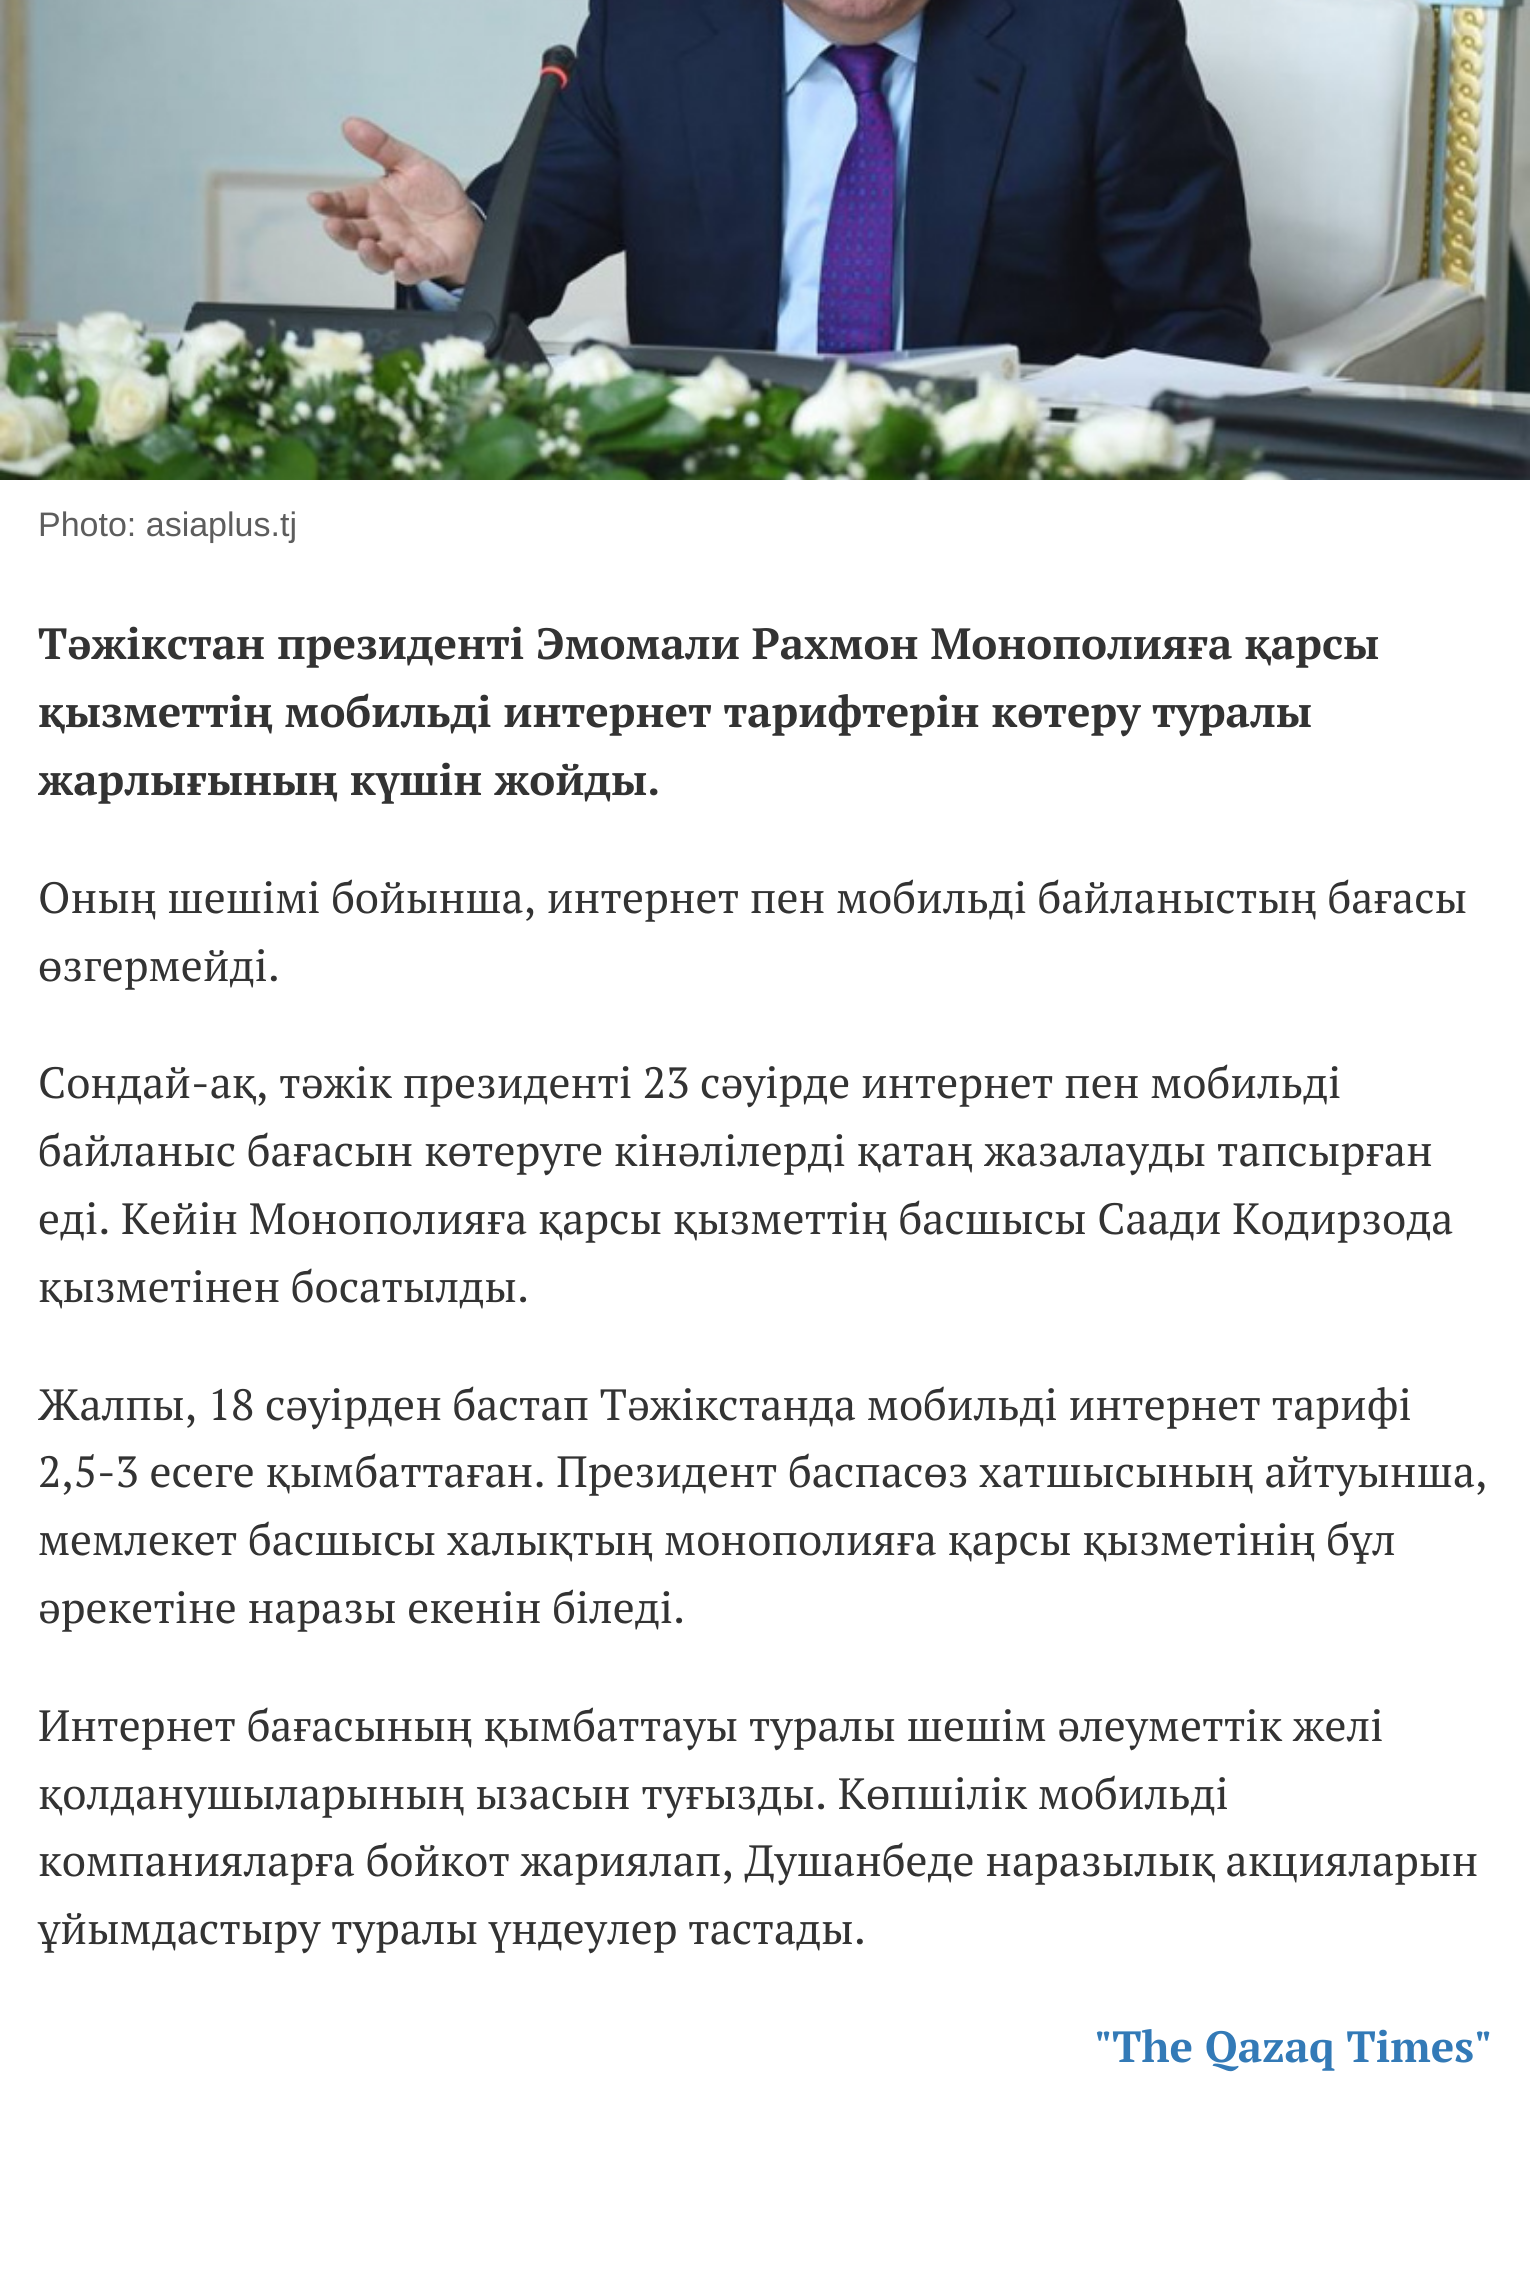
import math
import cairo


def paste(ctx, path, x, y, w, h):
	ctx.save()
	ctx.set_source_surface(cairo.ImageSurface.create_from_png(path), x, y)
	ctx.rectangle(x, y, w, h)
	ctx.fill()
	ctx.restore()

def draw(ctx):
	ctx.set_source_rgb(1, 1, 1)
	ctx.paint()
	paste(ctx, 'media/1.png', 0, 0, 1530, 480)
	ctx.select_font_face('Liberation Sans')
	ctx.set_font_size(34)
	ctx.set_source_rgb(0.365, 0.365, 0.365)
	ctx.move_to(38, 536)
	ctx.show_text('Photo: asiaplus.tj')
	ctx.select_font_face('PT Serif', cairo.FONT_SLANT_NORMAL, cairo.FONT_WEIGHT_BOLD)
	ctx.set_font_size(43.75)
	ctx.set_source_rgb(0.2, 0.2, 0.2)
	for x, y, s in [
		(38, 659, 'Тәжікстан президенті Эмомали Рахмон Монополияға қарсы'),
		(38, 727, 'қызметтің мобильді интернет тарифтерін көтеру туралы'),
		(38, 795, 'жарлығының күшін жойды.'),
	]:
		ctx.move_to(x, y)
		ctx.show_text(s)
	ctx.select_font_face('PT Serif')
	for x, y, s in [
		(38, 913, 'Оның шешімі бойынша, интернет пен мобильді байланыстың бағасы'),
		(38, 981, 'өзгермейді.'),
		(38, 1098, 'Сондай-ақ, тәжік президенті 23 сәуірде интернет пен мобильді'),
		(38, 1166, 'байланыс бағасын көтеруге кінәлілерді қатаң жазалауды тапсырған'),
		(38, 1234, 'еді. Кейін Монополияға қарсы қызметтің басшысы Саади Кодирзода'),
		(38, 1302, 'қызметінен босатылды.'),
		(38, 1420, 'Жалпы, 18 сәуірден бастап Тәжікстанда мобильді интернет тарифі'),
		(38, 1487, '2,5-3 есеге қымбаттаған. Президент баспасөз хатшысының айтуынша,'),
		(38, 1555, 'мемлекет басшысы халықтың монополияға қарсы қызметінің бұл'),
		(38, 1623, 'әрекетіне наразы екенін біледі.'),
		(38, 1741, 'Интернет бағасының қымбаттауы туралы шешім әлеуметтік желі'),
		(38, 1809, 'қолданушыларының ызасын туғызды. Көпшілік мобильді'),
		(38, 1876, 'компанияларға бойкот жариялап, Душанбеде наразылық акцияларын'),
		(38, 1944, 'ұйымдастыру туралы үндеулер тастады.'),
	]:
		ctx.move_to(x, y)
		ctx.show_text(s)
	ctx.select_font_face('PT Serif', cairo.FONT_SLANT_NORMAL, cairo.FONT_WEIGHT_BOLD)
	ctx.set_source_rgb(0.2, 0.478, 0.718)
	ctx.move_to(1094, 2062)
	ctx.show_text('"The Qazaq Times"')


surface = cairo.ImageSurface(cairo.FORMAT_RGB24, 1530, 2284)
ctx = cairo.Context(surface)
options = cairo.FontOptions()
options.set_hint_metrics(cairo.HINT_METRICS_OFF)
options.set_hint_style(cairo.HINT_STYLE_NONE)
ctx.set_font_options(options)
ctx.set_miter_limit(4)
draw(ctx)
surface.write_to_png('image.png')
